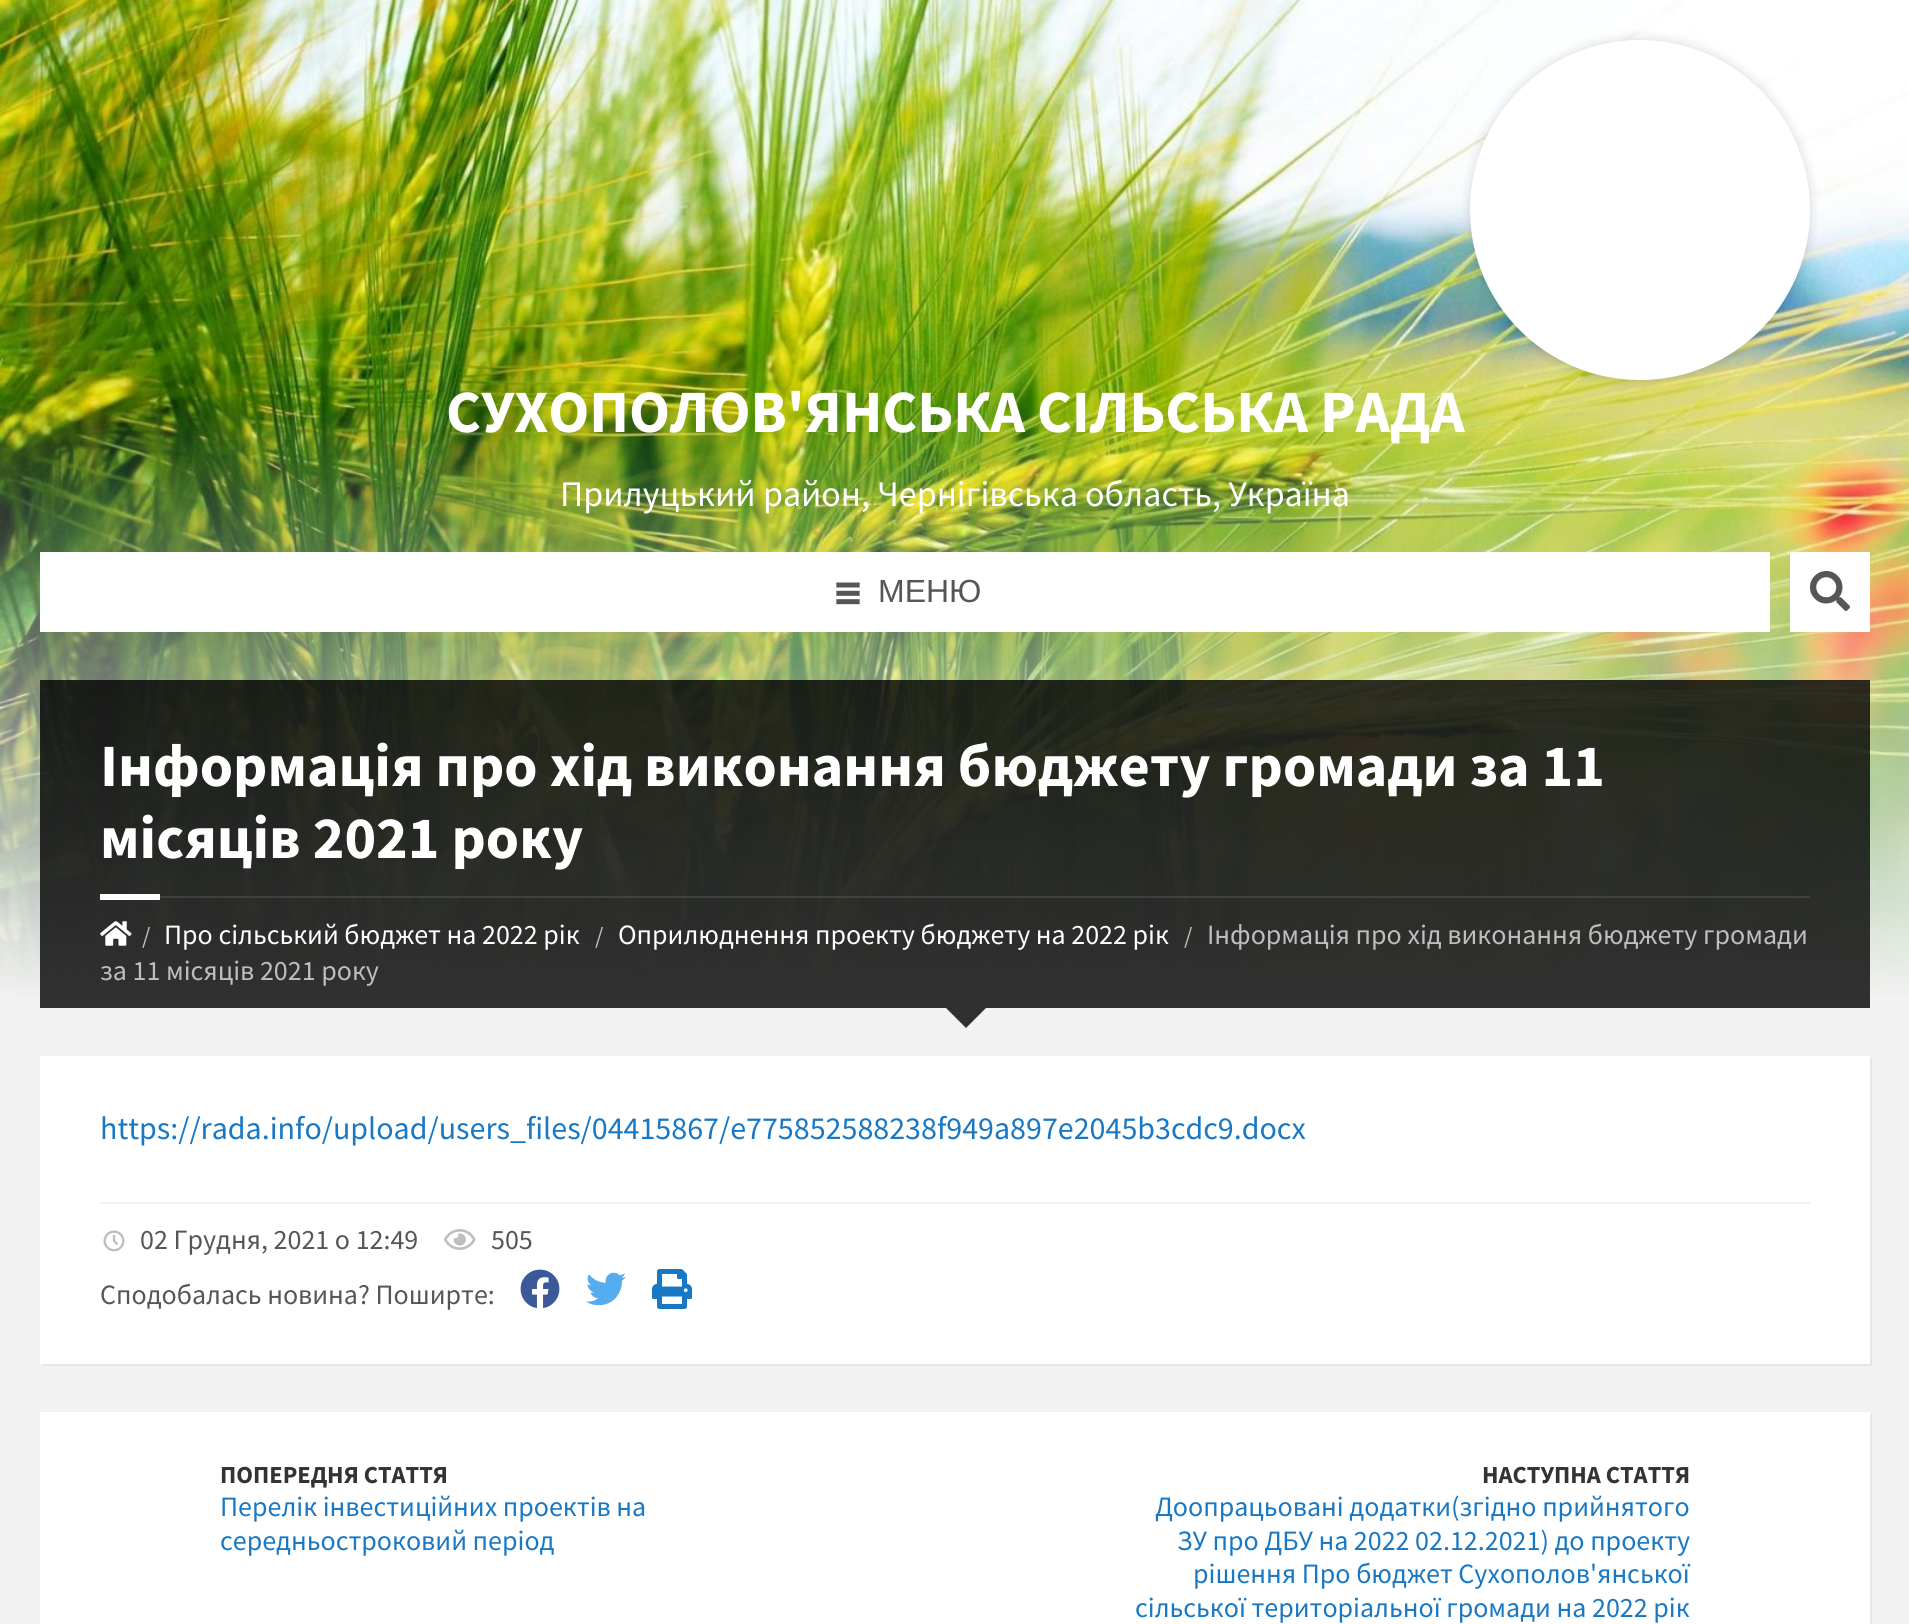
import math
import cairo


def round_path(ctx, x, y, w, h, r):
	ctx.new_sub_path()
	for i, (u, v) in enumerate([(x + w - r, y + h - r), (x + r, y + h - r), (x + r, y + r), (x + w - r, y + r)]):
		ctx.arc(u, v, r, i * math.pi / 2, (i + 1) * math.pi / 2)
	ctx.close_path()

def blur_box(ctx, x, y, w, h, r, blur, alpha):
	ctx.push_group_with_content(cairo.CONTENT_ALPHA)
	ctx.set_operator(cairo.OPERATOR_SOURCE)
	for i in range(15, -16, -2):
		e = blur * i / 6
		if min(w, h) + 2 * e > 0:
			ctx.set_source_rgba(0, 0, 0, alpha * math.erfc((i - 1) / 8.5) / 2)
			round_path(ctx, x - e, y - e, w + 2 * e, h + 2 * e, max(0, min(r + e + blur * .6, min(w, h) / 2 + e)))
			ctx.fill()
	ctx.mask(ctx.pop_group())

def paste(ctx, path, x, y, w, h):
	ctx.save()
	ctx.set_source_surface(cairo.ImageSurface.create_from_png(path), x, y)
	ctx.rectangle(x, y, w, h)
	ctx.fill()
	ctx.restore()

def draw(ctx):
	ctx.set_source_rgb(0.949, 0.949, 0.949)
	ctx.paint()
	paste(ctx, 'media/1.png', 0, 0, 1909, 1000)
	ctx.set_source_rgb(0, 0, 0)
	blur_box(ctx, 1470, 40, 340, 340, 170, 6, 0.15)
	ctx.set_source_rgb(1, 1, 1)
	ctx.arc(1640, 210, 168, 0, 2 * math.pi)
	ctx.fill_preserve()
	ctx.set_line_width(4)
	ctx.stroke()
	ctx.select_font_face('Source Sans Pro', cairo.FONT_SLANT_NORMAL, cairo.FONT_WEIGHT_BOLD)
	ctx.set_font_size(60)
	ctx.move_to(446, 432)
	ctx.show_text('СУХОПОЛОВ\'ЯНСЬКА СІЛЬСЬКА РАДА')
	ctx.select_font_face('Source Sans Pro')
	ctx.set_font_size(36)
	ctx.move_to(560, 506)
	ctx.show_text('Прилуцький район, Чернігівська область, Україна')
	ctx.rectangle(40, 552, 1730, 80)
	ctx.fill()
	paste(ctx, 'media/2.png', 836, 582, 24, 23)
	ctx.select_font_face('Liberation Sans')
	ctx.set_font_size(32)
	ctx.set_source_rgb(0.337, 0.337, 0.337)
	ctx.move_to(878, 602)
	ctx.show_text('МЕНЮ')
	ctx.set_source_rgb(1, 1, 1)
	ctx.rectangle(1790, 552, 80, 80)
	ctx.fill()
	paste(ctx, 'media/3.png', 1810, 571, 40, 40)
	ctx.set_source_rgba(0, 0, 0, 0.8)
	ctx.rectangle(40, 680, 1830, 328)
	ctx.fill()
	ctx.set_source_rgba(1, 1, 1, 0.1)
	ctx.rectangle(160, 896, 1650, 2)
	ctx.fill()
	ctx.select_font_face('Source Sans Pro', cairo.FONT_SLANT_NORMAL, cairo.FONT_WEIGHT_BOLD)
	ctx.set_font_size(60)
	ctx.set_source_rgb(1, 1, 1)
	ctx.move_to(100, 786)
	ctx.show_text('Інформація про хід виконання бюджету громади за 11')
	ctx.move_to(100, 858)
	ctx.show_text('місяців 2021 року')
	ctx.rectangle(100, 894, 60, 6)
	ctx.fill()
	paste(ctx, 'media/4.png', 100, 921, 32, 25)
	ctx.select_font_face('Source Sans Pro')
	ctx.set_font_size(24)
	ctx.set_source_rgb(0.745, 0.745, 0.745)
	ctx.move_to(142, 944)
	ctx.show_text('/')
	ctx.set_font_size(28)
	ctx.set_source_rgb(1, 1, 1)
	ctx.move_to(164, 944)
	ctx.show_text('Про сільський бюджет на 2022 рік')
	ctx.set_font_size(24)
	ctx.set_source_rgb(0.745, 0.745, 0.745)
	ctx.move_to(595, 944)
	ctx.show_text('/')
	ctx.set_font_size(28)
	ctx.set_source_rgb(1, 1, 1)
	ctx.move_to(618, 944)
	ctx.show_text('Оприлюднення проекту бюджету на 2022 рік')
	ctx.set_font_size(24)
	ctx.set_source_rgb(0.745, 0.745, 0.745)
	ctx.move_to(1184, 944)
	ctx.show_text('/')
	ctx.set_font_size(28)
	ctx.move_to(1207, 944)
	ctx.show_text('Інформація про хід виконання бюджету громади')
	ctx.move_to(100, 980)
	ctx.show_text('за 11 місяців 2021 року')
	ctx.set_source_rgb(0.188, 0.188, 0.188)
	ctx.new_path()
	ctx.move_to(946, 1008)
	ctx.line_to(986, 1008)
	ctx.line_to(966, 1028)
	ctx.close_path()
	ctx.fill()
	ctx.set_source_rgb(0.902, 0.902, 0.902)
	ctx.new_path()
	ctx.move_to(42, 1364)
	ctx.line_to(42, 1366)
	ctx.line_to(1872, 1366)
	ctx.line_to(1872, 1058)
	ctx.line_to(1870, 1058)
	ctx.line_to(1870, 1364)
	ctx.close_path()
	ctx.fill()
	ctx.set_source_rgb(1, 1, 1)
	ctx.rectangle(40, 1056, 1830, 308)
	ctx.fill()
	ctx.set_font_size(32)
	ctx.set_source_rgb(0.098, 0.471, 0.769)
	ctx.move_to(100, 1139)
	ctx.show_text('https://rada.info/upload/users_files/04415867/e775852588238f949a897e2045b3cdc9.docx')
	ctx.set_source_rgb(0.941, 0.941, 0.941)
	ctx.rectangle(100, 1202, 1710, 2)
	ctx.fill()
	paste(ctx, 'media/5.png', 103, 1230, 22, 22)
	ctx.set_font_size(28)
	ctx.set_source_rgb(0.337, 0.337, 0.337)
	ctx.move_to(140, 1249)
	ctx.show_text('02 Грудня, 2021 о 12:49')
	paste(ctx, 'media/6.png', 444, 1229, 32, 21)
	ctx.move_to(491, 1249)
	ctx.show_text('505')
	ctx.move_to(100, 1304)
	ctx.show_text('Сподобалась новина? Поширте:')
	paste(ctx, 'media/7.png', 520, 1269, 40, 40)
	paste(ctx, 'media/8.png', 586, 1272, 40, 34)
	paste(ctx, 'media/9.png', 652, 1269, 40, 40)
	ctx.set_source_rgb(0.902, 0.902, 0.902)
	ctx.new_path()
	ctx.move_to(42, 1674)
	ctx.line_to(42, 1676)
	ctx.line_to(1872, 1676)
	ctx.line_to(1872, 1414)
	ctx.line_to(1870, 1414)
	ctx.line_to(1870, 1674)
	ctx.close_path()
	ctx.fill()
	ctx.set_source_rgb(1, 1, 1)
	ctx.rectangle(40, 1412, 1830, 212)
	ctx.fill()
	ctx.select_font_face('Source Sans Pro', cairo.FONT_SLANT_NORMAL, cairo.FONT_WEIGHT_BOLD)
	ctx.set_font_size(24.5)
	ctx.set_source_rgb(0.2, 0.2, 0.2)
	ctx.move_to(220, 1483)
	ctx.show_text('ПОПЕРЕДНЯ СТАТТЯ')
	ctx.select_font_face('Source Sans Pro')
	ctx.set_font_size(28)
	ctx.set_source_rgb(0.098, 0.471, 0.769)
	ctx.move_to(220, 1516)
	ctx.show_text('Перелік інвестиційних проектів на')
	ctx.move_to(220, 1550)
	ctx.show_text('середньостроковий період')
	ctx.select_font_face('Source Sans Pro', cairo.FONT_SLANT_NORMAL, cairo.FONT_WEIGHT_BOLD)
	ctx.set_font_size(24.5)
	ctx.set_source_rgb(0.2, 0.2, 0.2)
	ctx.move_to(1482, 1483)
	ctx.show_text('НАСТУПНА СТАТТЯ')
	ctx.select_font_face('Source Sans Pro')
	ctx.set_font_size(28)
	ctx.set_source_rgb(0.098, 0.471, 0.769)
	for x, y, s in [
		(1155, 1516, 'Доопрацьовані додатки(згідно прийнятого'),
		(1177, 1550, 'ЗУ про ДБУ на 2022 02.12.2021) до проекту'),
		(1193, 1583, 'рішення Про бюджет Сухополов\'янської'),
		(1135, 1617, 'сільської територіальної громади на 2022 рік'),
	]:
		ctx.move_to(x, y)
		ctx.show_text(s)


surface = cairo.ImageSurface(cairo.FORMAT_RGB24, 1909, 1624)
ctx = cairo.Context(surface)
options = cairo.FontOptions()
options.set_hint_metrics(cairo.HINT_METRICS_OFF)
options.set_hint_style(cairo.HINT_STYLE_NONE)
ctx.set_font_options(options)
ctx.set_miter_limit(4)
draw(ctx)
surface.write_to_png('image.png')
